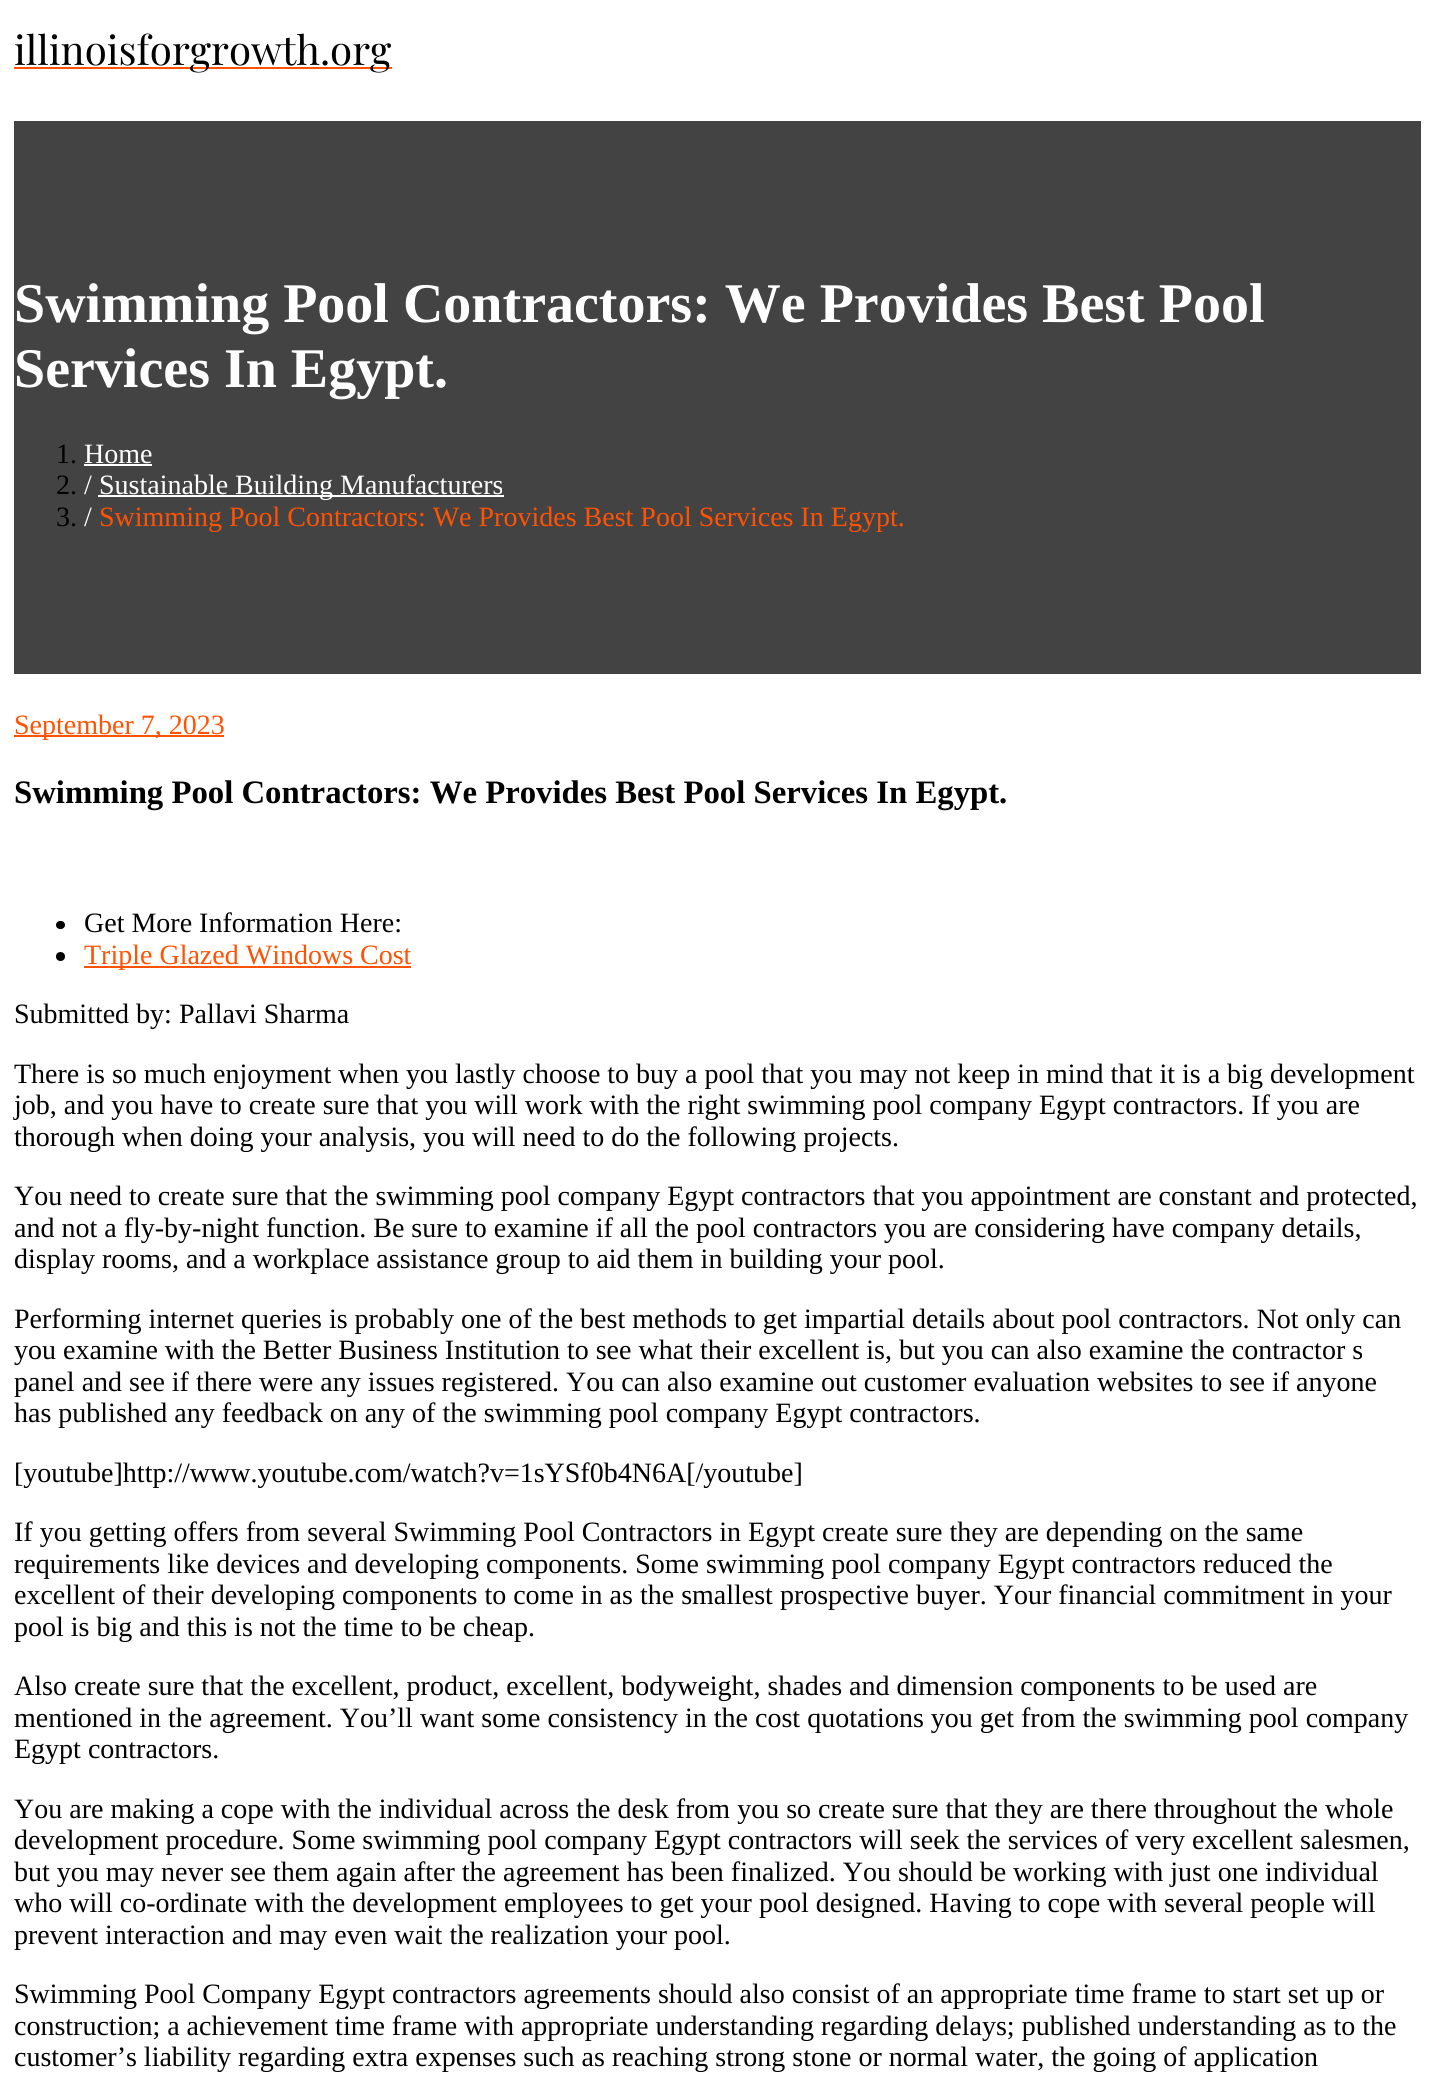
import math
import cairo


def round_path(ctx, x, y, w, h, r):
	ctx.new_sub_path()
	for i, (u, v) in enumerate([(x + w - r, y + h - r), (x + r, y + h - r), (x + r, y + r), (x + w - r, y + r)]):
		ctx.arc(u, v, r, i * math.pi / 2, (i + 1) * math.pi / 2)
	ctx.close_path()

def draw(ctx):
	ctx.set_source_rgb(1, 1, 1)
	ctx.paint()
	ctx.set_source_rgb(1, 0.322, 0.008)
	ctx.rectangle(14, 67, 378, 2)
	ctx.fill()
	ctx.select_font_face('Playfair Display')
	ctx.set_font_size(40.25)
	ctx.set_source_rgb(0, 0, 0)
	ctx.move_to(14, 65)
	ctx.show_text('illinoisforgrowth.org')
	ctx.set_source_rgb(0.263, 0.263, 0.263)
	ctx.rectangle(14, 121, 1407, 553)
	ctx.fill()
	ctx.select_font_face('Liberation Serif', cairo.FONT_SLANT_NORMAL, cairo.FONT_WEIGHT_BOLD)
	ctx.set_font_size(56)
	ctx.set_source_rgb(1, 1, 1)
	ctx.move_to(14, 322)
	ctx.show_text('Swimming Pool Contractors: We Provides Best Pool')
	ctx.move_to(14, 387)
	ctx.show_text('Services In Egypt.')
	ctx.select_font_face('Liberation Serif')
	ctx.set_font_size(28)
	ctx.set_source_rgb(0, 0, 0)
	ctx.move_to(56, 463)
	ctx.show_text('1.')
	ctx.set_source_rgb(1, 1, 1)
	ctx.move_to(84, 463)
	ctx.show_text('Home')
	ctx.rectangle(84, 464, 68, 2)
	ctx.fill()
	ctx.set_source_rgb(0, 0, 0)
	ctx.move_to(56, 494)
	ctx.show_text('2.')
	ctx.set_source_rgb(1, 1, 1)
	ctx.move_to(84, 494)
	ctx.show_text('/')
	ctx.rectangle(98, 495, 406, 2)
	ctx.fill()
	ctx.move_to(99, 494)
	ctx.show_text('Sustainable Building Manufacturers')
	ctx.set_source_rgb(0, 0, 0)
	ctx.move_to(56, 526)
	ctx.show_text('3.')
	ctx.set_source_rgb(1, 1, 1)
	ctx.move_to(84, 526)
	ctx.show_text('/')
	ctx.set_source_rgb(1, 0.322, 0.008)
	ctx.move_to(99, 526)
	ctx.show_text('Swimming Pool Contractors: We Provides Best Pool Services In Egypt.')
	ctx.rectangle(14, 735, 210, 2)
	ctx.fill()
	ctx.move_to(14, 734)
	ctx.show_text('September 7, 2023')
	ctx.select_font_face('Liberation Serif', cairo.FONT_SLANT_NORMAL, cairo.FONT_WEIGHT_BOLD)
	ctx.set_font_size(32.75)
	ctx.set_source_rgb(0, 0, 0)
	ctx.move_to(14, 803)
	ctx.show_text('Swimming Pool Contractors: We Provides Best Pool Services In Egypt.')
	round_path(ctx, 56, 921, 9, 8, 4)
	ctx.fill()
	ctx.select_font_face('Liberation Serif')
	ctx.set_font_size(28)
	ctx.move_to(84, 932)
	ctx.show_text('Get More Information Here:')
	ctx.new_path()
	ctx.arc(60.5, 956.5, 4.5, 0, 2 * math.pi)
	ctx.fill()
	ctx.set_source_rgb(1, 0.322, 0.008)
	ctx.rectangle(84, 966, 327, 2)
	ctx.fill()
	ctx.move_to(84, 964)
	ctx.show_text('Triple Glazed Windows Cost')
	ctx.set_source_rgb(0, 0, 0)
	for x, y, s in [
		(14, 1023, 'Submitted by: Pallavi Sharma'),
		(14, 1083, 'There is so much enjoyment when you lastly choose to buy a pool that you may not keep in mind that it is a big development'),
		(14, 1114, 'job, and you have to create sure that you will work with the right swimming pool company Egypt contractors. If you are'),
		(14, 1146, 'thorough when doing your analysis, you will need to do the following projects.'),
		(14, 1205, 'You need to create sure that the swimming pool company Egypt contractors that you appointment are constant and protected,'),
		(14, 1237, 'and not a fly-by-night function. Be sure to examine if all the pool contractors you are considering have company details,'),
		(14, 1268, 'display rooms, and a workplace assistance group to aid them in building your pool.'),
		(14, 1328, 'Performing internet queries is probably one of the best methods to get impartial details about pool contractors. Not only can'),
		(14, 1359, 'you examine with the Better Business Institution to see what their excellent is, but you can also examine the contractor s'),
		(14, 1391, 'panel and see if there were any issues registered. You can also examine out customer evaluation websites to see if anyone'),
		(14, 1422, 'has published any feedback on any of the swimming pool company Egypt contractors.'),
		(14, 1482, '[youtube]http://www.youtube.com/watch?v=1sYSf0b4N6A[/youtube]'),
		(14, 1541, 'If you getting offers from several Swimming Pool Contractors in Egypt create sure they are depending on the same'),
		(14, 1573, 'requirements like devices and developing components. Some swimming pool company Egypt contractors reduced the'),
		(14, 1604, 'excellent of their developing components to come in as the smallest prospective buyer. Your financial commitment in your'),
		(14, 1636, 'pool is big and this is not the time to be cheap.'),
		(14, 1695, 'Also create sure that the excellent, product, excellent, bodyweight, shades and dimension components to be used are'),
		(14, 1727, 'mentioned in the agreement. You’ll want some consistency in the cost quotations you get from the swimming pool company'),
		(14, 1758, 'Egypt contractors.'),
		(14, 1818, 'You are making a cope with the individual across the desk from you so create sure that they are there throughout the whole'),
		(14, 1849, 'development procedure. Some swimming pool company Egypt contractors will seek the services of very excellent salesmen,'),
		(14, 1881, 'but you may never see them again after the agreement has been finalized. You should be working with just one individual'),
		(14, 1912, 'who will co-ordinate with the development employees to get your pool designed. Having to cope with several people will'),
		(14, 1944, 'prevent interaction and may even wait the realization your pool.'),
		(14, 2003, 'Swimming Pool Company Egypt contractors agreements should also consist of an appropriate time frame to start set up or'),
		(14, 2035, 'construction; a achievement time frame with appropriate understanding regarding delays; published understanding as to the'),
		(14, 2066, 'customer’s liability regarding extra expenses such as reaching strong stone or normal water, the going of application'),
	]:
		ctx.move_to(x, y)
		ctx.show_text(s)


surface = cairo.ImageSurface(cairo.FORMAT_RGB24, 1435, 2084)
ctx = cairo.Context(surface)
options = cairo.FontOptions()
options.set_hint_metrics(cairo.HINT_METRICS_OFF)
options.set_hint_style(cairo.HINT_STYLE_NONE)
ctx.set_font_options(options)
ctx.set_miter_limit(4)
draw(ctx)
surface.write_to_png('image.png')
